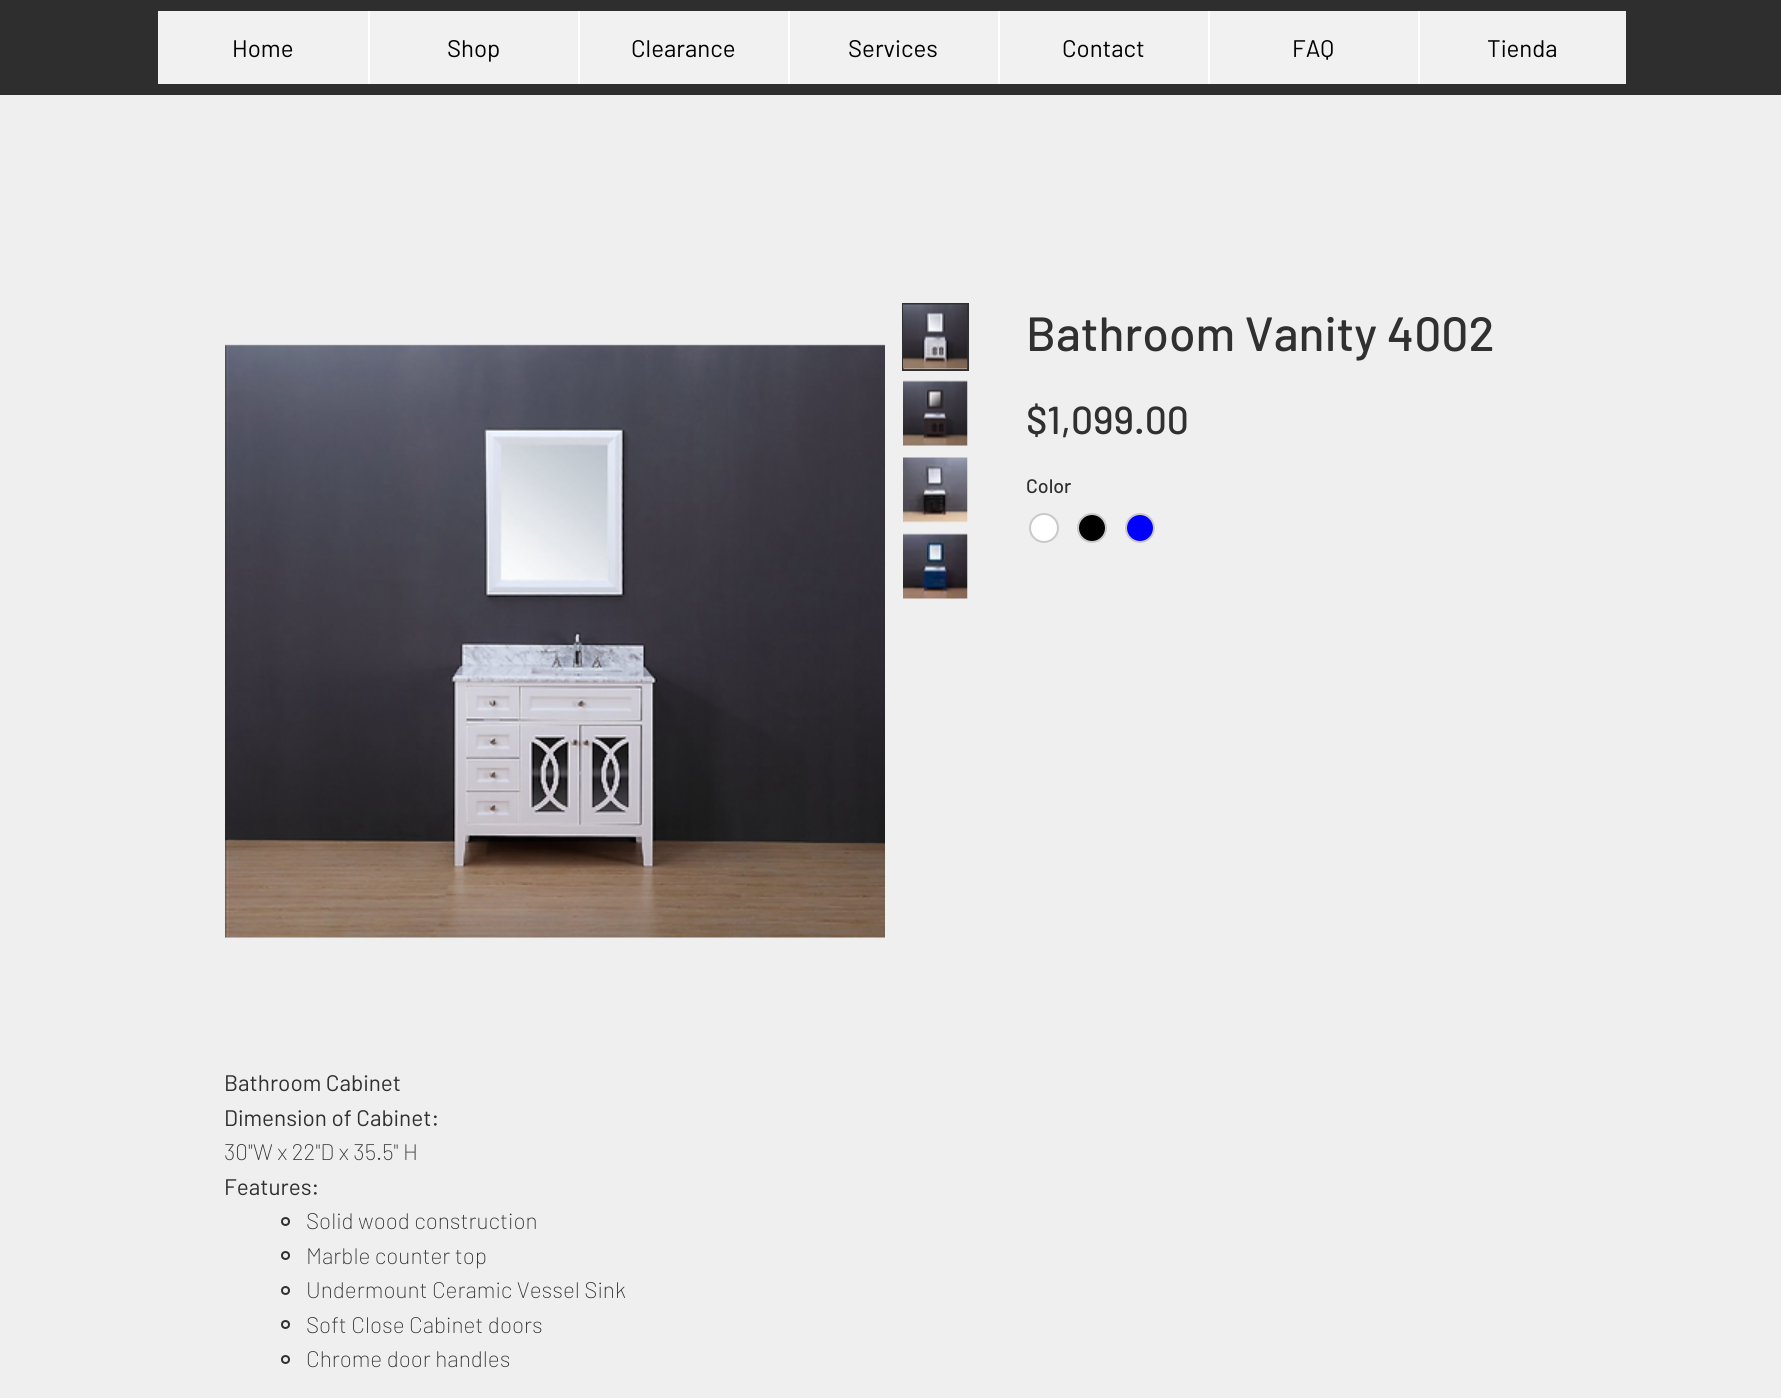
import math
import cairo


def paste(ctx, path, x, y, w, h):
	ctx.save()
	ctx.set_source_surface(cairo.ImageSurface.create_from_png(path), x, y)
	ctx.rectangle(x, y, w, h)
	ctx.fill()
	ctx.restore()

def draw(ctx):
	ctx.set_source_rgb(0.937, 0.937, 0.937)
	ctx.paint()
	ctx.set_source_rgb(0.184, 0.18, 0.18)
	ctx.rectangle(0, 0, 1781, 95)
	ctx.fill()
	ctx.set_source_rgb(0.945, 0.945, 0.945)
	ctx.rectangle(158, 11, 1468, 73)
	ctx.fill()
	ctx.select_font_face('Barlow')
	ctx.set_font_size(24)
	ctx.set_source_rgb(0, 0, 0)
	ctx.move_to(232, 57)
	ctx.show_text('Home')
	ctx.set_source_rgb(1, 1, 1)
	ctx.rectangle(368, 11, 2, 73)
	ctx.fill()
	ctx.set_source_rgb(0, 0, 0)
	ctx.move_to(447, 57)
	ctx.show_text('Shop')
	ctx.set_source_rgb(1, 1, 1)
	ctx.rectangle(578, 11, 2, 73)
	ctx.fill()
	ctx.set_source_rgb(0, 0, 0)
	ctx.move_to(631, 57)
	ctx.show_text('Clearance')
	ctx.set_source_rgb(1, 1, 1)
	ctx.rectangle(788, 11, 2, 73)
	ctx.fill()
	ctx.set_source_rgb(0, 0, 0)
	ctx.move_to(848, 57)
	ctx.show_text('Services')
	ctx.set_source_rgb(1, 1, 1)
	ctx.rectangle(998, 11, 2, 73)
	ctx.fill()
	ctx.set_source_rgb(0, 0, 0)
	ctx.move_to(1062, 57)
	ctx.show_text('Contact')
	ctx.set_source_rgb(1, 1, 1)
	ctx.rectangle(1208, 11, 2, 73)
	ctx.fill()
	ctx.set_source_rgb(0, 0, 0)
	ctx.move_to(1292, 57)
	ctx.show_text('FAQ')
	ctx.set_source_rgb(1, 1, 1)
	ctx.rectangle(1418, 11, 2, 73)
	ctx.fill()
	ctx.set_source_rgb(0, 0, 0)
	ctx.move_to(1487, 57)
	ctx.show_text('Tienda')
	ctx.select_font_face('Barlow Medium')
	ctx.set_font_size(48)
	ctx.set_source_rgb(0.188, 0.188, 0.188)
	ctx.move_to(1026, 351)
	ctx.show_text('Bathroom Vanity 4002')
	ctx.set_font_size(39)
	ctx.move_to(1026, 434)
	ctx.show_text('$1,099.00')
	ctx.set_font_size(19.5)
	ctx.move_to(1026, 493)
	ctx.show_text('Color')
	ctx.set_source_rgb(1, 1, 1)
	ctx.new_path()
	ctx.arc(1044, 528, 14, 0, 2 * math.pi)
	ctx.fill_preserve()
	ctx.set_source_rgb(0.788, 0.788, 0.788)
	ctx.stroke()
	ctx.set_source_rgb(0, 0, 0)
	ctx.arc(1092, 528, 14, 0, 2 * math.pi)
	ctx.fill_preserve()
	ctx.set_source_rgb(0.788, 0.788, 0.788)
	ctx.stroke()
	ctx.set_source_rgb(0, 0, 1)
	ctx.arc(1140, 528, 14, 0, 2 * math.pi)
	ctx.fill_preserve()
	ctx.set_source_rgb(0.788, 0.788, 0.788)
	ctx.stroke()
	paste(ctx, 'media/1.png', 225, 344, 660, 594)
	ctx.rectangle(903, 304, 65, 66)
	ctx.set_source_rgb(0.188, 0.188, 0.188)
	ctx.stroke()
	paste(ctx, 'media/2.png', 903, 304, 65, 66)
	paste(ctx, 'media/3.png', 903, 380, 65, 66)
	paste(ctx, 'media/4.png', 903, 457, 65, 66)
	paste(ctx, 'media/5.png', 903, 533, 65, 66)
	ctx.select_font_face('Barlow')
	ctx.set_font_size(22.5)
	ctx.move_to(224, 1091)
	ctx.show_text('Bathroom Cabinet')
	ctx.move_to(224, 1126)
	ctx.show_text('Dimension of Cabinet:')
	ctx.select_font_face('Barlow ExtraLight')
	ctx.move_to(224, 1160)
	ctx.show_text('30"W x 22"D x 35.5" H')
	ctx.select_font_face('Barlow')
	ctx.move_to(224, 1195)
	ctx.show_text('Features:')
	ctx.new_path()
	ctx.arc(285.5, 1221.5, 3.5, 0, 2 * math.pi)
	ctx.stroke()
	ctx.select_font_face('Barlow ExtraLight')
	ctx.move_to(306, 1229)
	ctx.show_text('Solid wood construction')
	ctx.new_path()
	ctx.arc(285.5, 1255.5, 3.5, 0, 2 * math.pi)
	ctx.stroke()
	ctx.move_to(306, 1264)
	ctx.show_text('Marble counter top')
	ctx.new_path()
	ctx.arc(285.5, 1290.5, 3.5, 0, 2 * math.pi)
	ctx.stroke()
	ctx.move_to(306, 1298)
	ctx.show_text('Undermount Ceramic Vessel Sink')
	ctx.new_path()
	ctx.arc(285.5, 1324.5, 3.5, 0, 2 * math.pi)
	ctx.stroke()
	ctx.move_to(306, 1333)
	ctx.show_text('Soft Close Cabinet doors')
	ctx.new_path()
	ctx.arc(285.5, 1359.5, 3.5, 0, 2 * math.pi)
	ctx.stroke()
	ctx.move_to(306, 1367)
	ctx.show_text('Chrome door handles')


surface = cairo.ImageSurface(cairo.FORMAT_RGB24, 1781, 1398)
ctx = cairo.Context(surface)
options = cairo.FontOptions()
options.set_hint_metrics(cairo.HINT_METRICS_OFF)
options.set_hint_style(cairo.HINT_STYLE_NONE)
ctx.set_font_options(options)
ctx.set_miter_limit(4)
draw(ctx)
surface.write_to_png('image.png')
